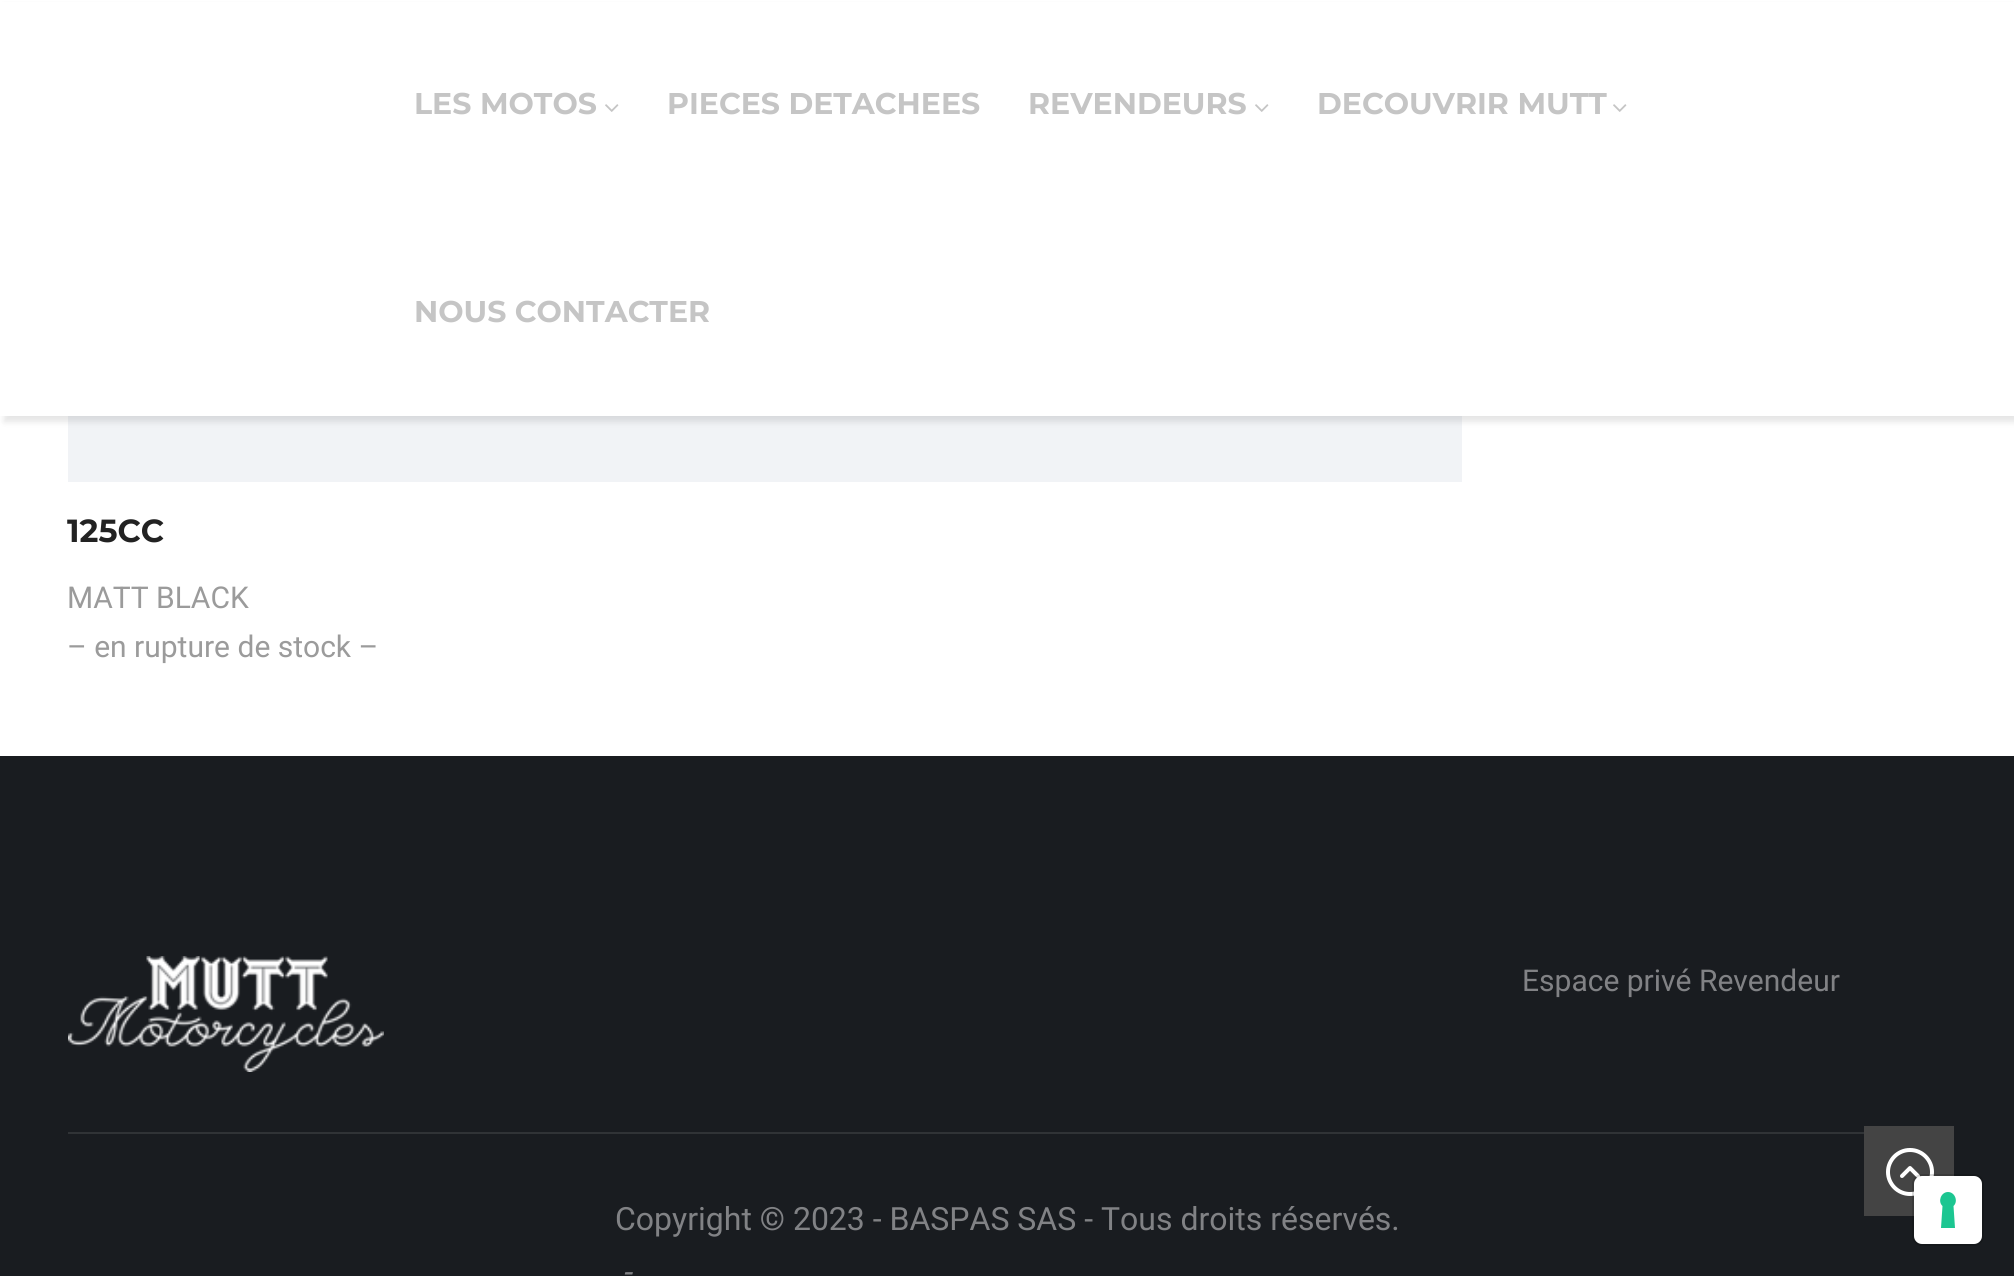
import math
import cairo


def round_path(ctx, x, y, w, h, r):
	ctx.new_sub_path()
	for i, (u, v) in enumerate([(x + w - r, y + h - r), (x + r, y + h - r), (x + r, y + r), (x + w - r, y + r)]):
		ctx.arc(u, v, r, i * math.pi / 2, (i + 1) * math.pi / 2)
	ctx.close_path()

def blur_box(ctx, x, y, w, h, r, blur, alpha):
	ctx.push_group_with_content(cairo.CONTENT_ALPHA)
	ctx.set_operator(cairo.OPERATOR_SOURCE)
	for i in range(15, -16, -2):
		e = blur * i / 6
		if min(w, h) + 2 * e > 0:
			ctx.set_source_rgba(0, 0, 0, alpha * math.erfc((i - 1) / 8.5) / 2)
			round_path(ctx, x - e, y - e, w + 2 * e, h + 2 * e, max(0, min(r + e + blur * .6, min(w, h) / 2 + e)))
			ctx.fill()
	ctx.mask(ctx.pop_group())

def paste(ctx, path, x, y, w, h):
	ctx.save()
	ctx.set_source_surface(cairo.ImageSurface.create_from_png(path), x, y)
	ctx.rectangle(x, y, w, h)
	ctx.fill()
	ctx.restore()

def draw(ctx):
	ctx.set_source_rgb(1, 1, 1)
	ctx.paint()
	ctx.set_source_rgb(0.945, 0.953, 0.961)
	ctx.rectangle(68, 416, 1394, 66)
	ctx.fill()
	ctx.set_source_rgb(0, 0, 0)
	blur_box(ctx, 4, 6, 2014, 416, 0, 3, 0.1)
	ctx.set_source_rgb(1, 1, 1)
	ctx.rectangle(0, 2, 2014, 414)
	ctx.fill()
	ctx.select_font_face('Montserrat', cairo.FONT_SLANT_NORMAL, cairo.FONT_WEIGHT_BOLD)
	ctx.set_font_size(30)
	ctx.set_source_rgb(0.773, 0.773, 0.773)
	ctx.move_to(414, 114)
	ctx.show_text('LES MOTOS')
	paste(ctx, 'media/1.png', 605, 104, 14, 8)
	ctx.move_to(667, 114)
	ctx.show_text('PIECES DETACHEES')
	ctx.move_to(1028, 114)
	ctx.show_text('REVENDEURS')
	paste(ctx, 'media/1.png', 1255, 104, 14, 8)
	ctx.move_to(1317, 114)
	ctx.show_text('DECOUVRIR MUTT')
	paste(ctx, 'media/1.png', 1613, 104, 14, 8)
	ctx.move_to(414, 322)
	ctx.show_text('NOUS CONTACTER')
	ctx.set_font_size(32)
	ctx.set_source_rgb(0.133, 0.133, 0.133)
	ctx.move_to(67, 542)
	ctx.show_text('125CC')
	ctx.select_font_face('Roboto')
	ctx.set_font_size(30)
	ctx.set_source_rgb(0.608, 0.608, 0.608)
	ctx.move_to(67, 608)
	ctx.show_text('MATT BLACK')
	ctx.move_to(67, 657)
	ctx.show_text('– en rupture de stock –')
	ctx.set_source_rgb(0.098, 0.11, 0.125)
	ctx.rectangle(0, 756, 2014, 520)
	ctx.fill()
	paste(ctx, 'media/2.png', 68, 956, 316, 116)
	ctx.set_source_rgb(0.506, 0.51, 0.522)
	ctx.move_to(1522, 991)
	ctx.show_text('Espace privé Revendeur')
	ctx.set_source_rgb(0.267, 0.267, 0.267)
	ctx.rectangle(1864, 1126, 90, 90)
	ctx.fill()
	paste(ctx, 'media/3.png', 1886, 1148, 48, 48)
	ctx.set_source_rgb(0.188, 0.2, 0.212)
	ctx.rectangle(68, 1132, 1796, 2)
	ctx.fill()
	ctx.set_font_size(32)
	ctx.set_source_rgb(0.506, 0.51, 0.522)
	ctx.move_to(615, 1230)
	ctx.show_text('Copyright © 2023 - BASPAS SAS - Tous droits réservés.')
	ctx.select_font_face('Roboto', cairo.FONT_SLANT_ITALIC)
	ctx.move_to(622, 1283)
	ctx.show_text('-')
	round_path(ctx, 1913, 1175, 70, 70, 9)
	ctx.set_source_rgba(0, 0, 0, 0.15)
	ctx.stroke()
	ctx.set_source_rgb(1, 1, 1)
	round_path(ctx, 1914, 1176, 68, 68, 8)
	ctx.fill()
	ctx.set_source_rgb(0.11, 0.776, 0.569)
	ctx.set_fill_rule(cairo.FILL_RULE_EVEN_ODD)
	ctx.new_path()
	ctx.move_to(1948, 1192)
	ctx.curve_to(1955, 1192, 1958.5, 1201.5, 1953.5, 1206)
	ctx.line_to(1955, 1228)
	ctx.line_to(1941, 1228)
	ctx.line_to(1942.5, 1206)
	ctx.curve_to(1937.5, 1201.5, 1941, 1192, 1948, 1192)
	ctx.close_path()
	ctx.fill()


surface = cairo.ImageSurface(cairo.FORMAT_RGB24, 2014, 1276)
ctx = cairo.Context(surface)
options = cairo.FontOptions()
options.set_hint_metrics(cairo.HINT_METRICS_OFF)
options.set_hint_style(cairo.HINT_STYLE_NONE)
ctx.set_font_options(options)
ctx.set_miter_limit(4)
draw(ctx)
surface.write_to_png('image.png')
